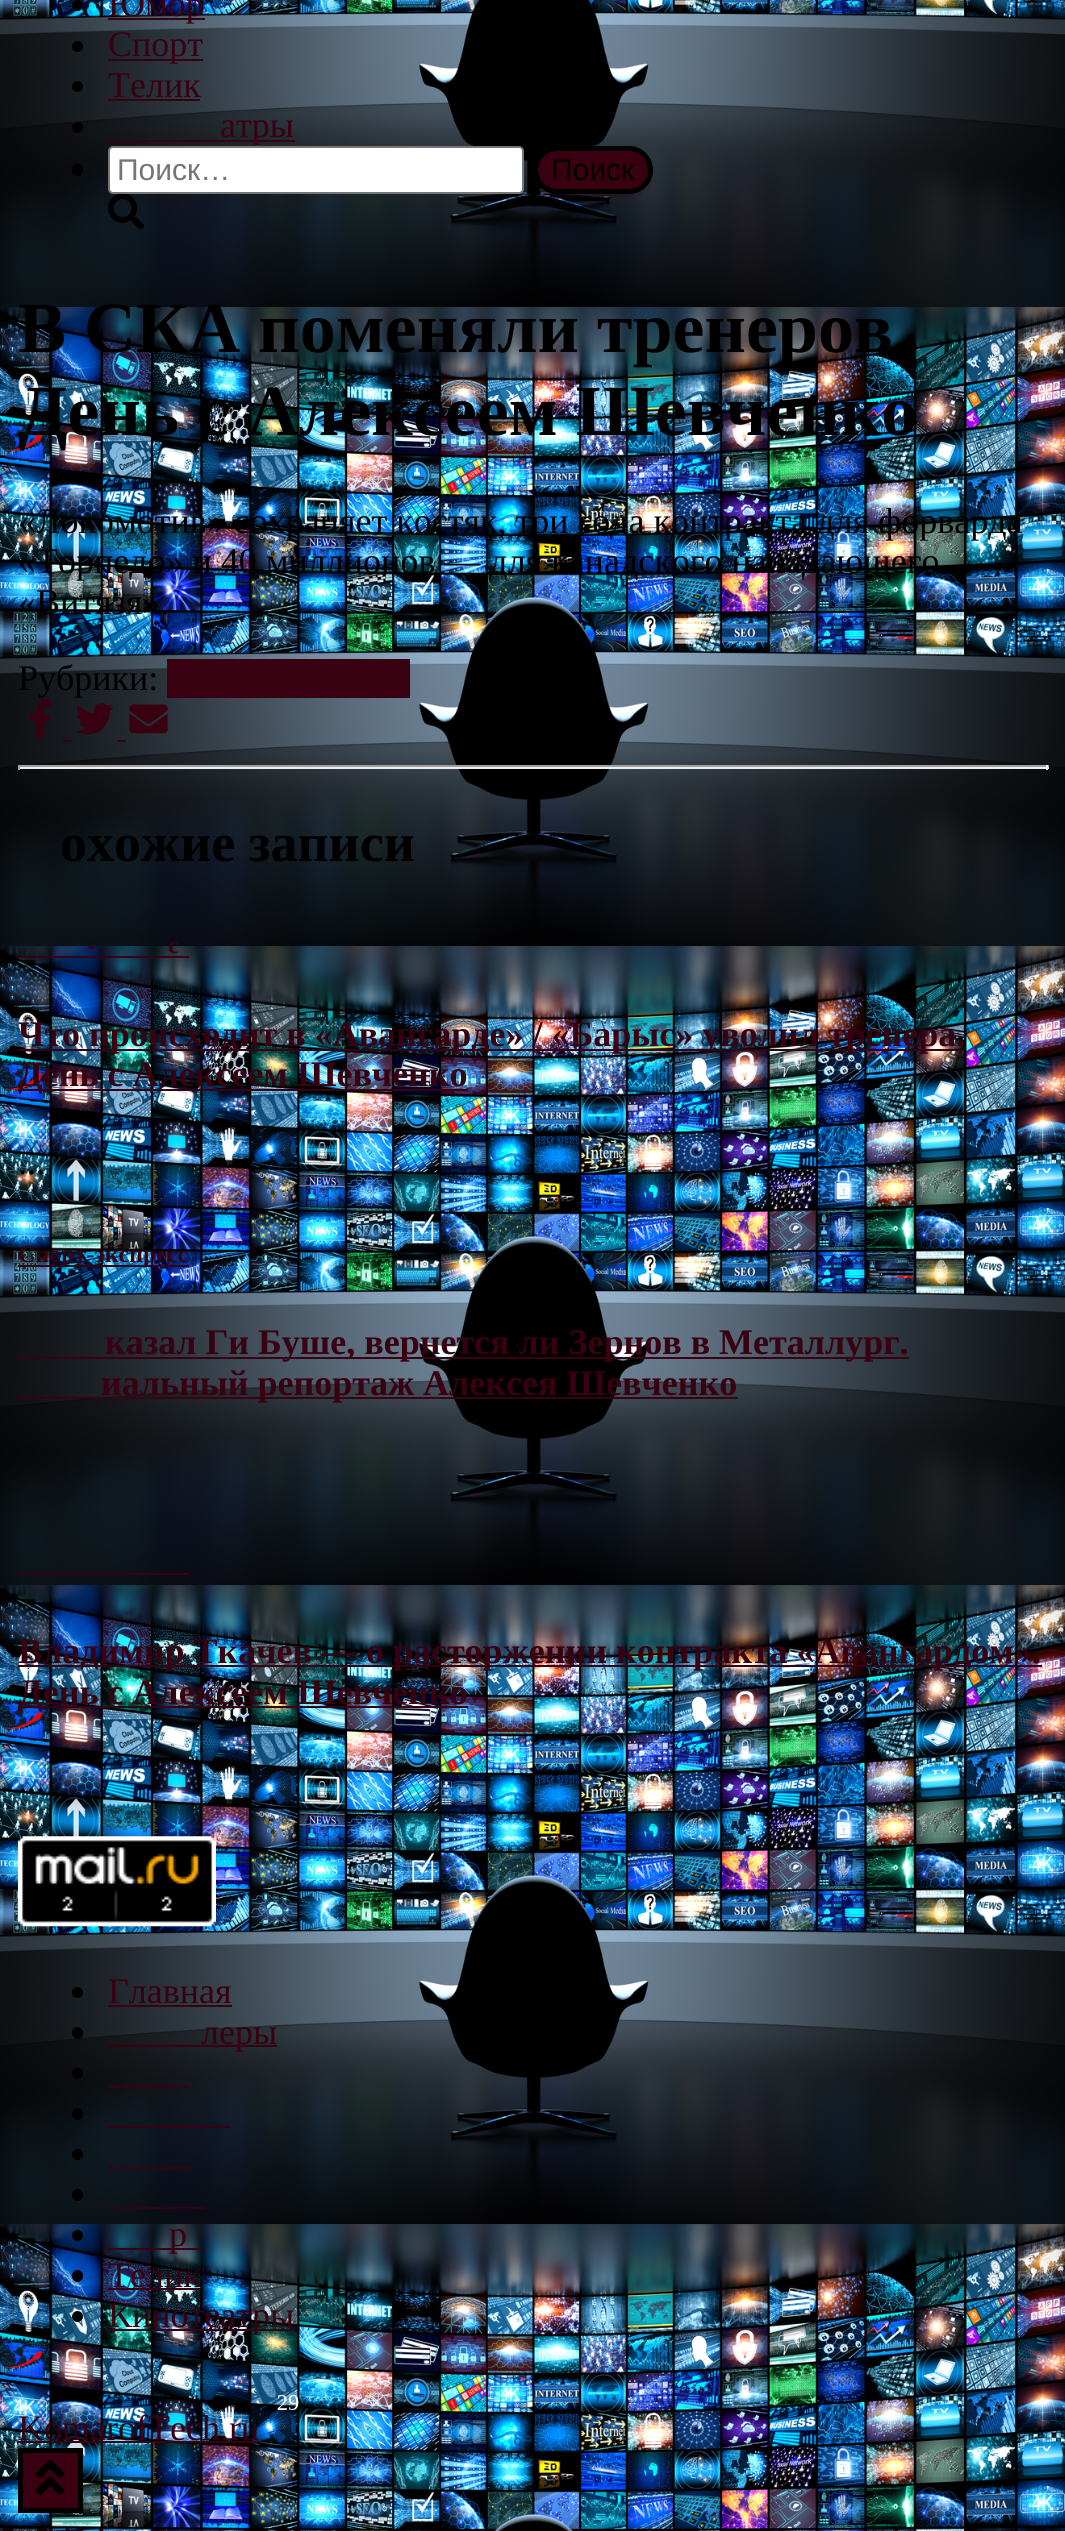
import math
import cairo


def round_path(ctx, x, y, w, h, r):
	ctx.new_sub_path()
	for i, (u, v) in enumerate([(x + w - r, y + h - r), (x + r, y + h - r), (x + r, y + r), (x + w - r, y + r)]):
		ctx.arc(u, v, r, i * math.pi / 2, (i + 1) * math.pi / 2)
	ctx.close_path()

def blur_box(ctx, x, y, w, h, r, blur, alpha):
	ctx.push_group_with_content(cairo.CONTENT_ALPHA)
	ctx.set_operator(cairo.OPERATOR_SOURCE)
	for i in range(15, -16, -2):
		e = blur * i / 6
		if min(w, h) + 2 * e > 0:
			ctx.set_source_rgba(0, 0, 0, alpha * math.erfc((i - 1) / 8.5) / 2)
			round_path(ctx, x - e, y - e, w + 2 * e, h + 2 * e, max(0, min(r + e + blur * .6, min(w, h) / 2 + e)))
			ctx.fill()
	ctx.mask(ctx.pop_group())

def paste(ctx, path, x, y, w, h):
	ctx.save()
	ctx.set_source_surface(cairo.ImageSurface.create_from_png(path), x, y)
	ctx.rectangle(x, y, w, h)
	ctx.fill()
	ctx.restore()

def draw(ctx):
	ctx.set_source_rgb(1, 1, 1)
	ctx.paint()
	paste(ctx, 'media/1.png', 0, 0, 1065, 2531)
	ctx.set_source_rgb(0, 0, 0)
	ctx.arc(77.5, 5.5, 5.5, 0, 2 * math.pi)
	ctx.fill()
	ctx.set_source_rgb(0.22, 0, 0.067)
	ctx.rectangle(108, 18, 97, 2)
	ctx.fill()
	ctx.select_font_face('Liberation Serif')
	ctx.set_font_size(36)
	ctx.move_to(108, 16)
	ctx.show_text('Юмор')
	ctx.set_source_rgb(0, 0, 0)
	ctx.new_path()
	ctx.arc(77.5, 46.5, 5.5, 0, 2 * math.pi)
	ctx.fill()
	ctx.set_source_rgb(0.22, 0, 0.067)
	ctx.rectangle(108, 59, 95, 2)
	ctx.fill()
	ctx.move_to(108, 56)
	ctx.show_text('Спорт')
	ctx.set_source_rgb(0, 0, 0)
	ctx.new_path()
	ctx.arc(77.5, 86.5, 5.5, 0, 2 * math.pi)
	ctx.fill()
	ctx.set_source_rgb(0.22, 0, 0.067)
	ctx.move_to(108, 97)
	ctx.show_text('Телик')
	ctx.rectangle(108, 99, 92, 2)
	ctx.fill()
	ctx.set_source_rgb(0, 0, 0)
	ctx.arc(77.5, 127.5, 5.5, 0, 2 * math.pi)
	ctx.fill()
	ctx.set_source_rgb(0.22, 0, 0.067)
	ctx.rectangle(108, 140, 187, 2)
	ctx.fill()
	ctx.move_to(220, 137)
	ctx.show_text('атры')
	ctx.set_source_rgb(0, 0, 0)
	round_path(ctx, 72, 164, 11, 12, 5.5)
	ctx.fill()
	ctx.set_source_rgb(1, 1, 1)
	round_path(ctx, 109, 147, 414, 46, 4)
	ctx.fill_preserve()
	ctx.set_source_rgb(0.463, 0.463, 0.463)
	ctx.stroke()
	ctx.select_font_face('Liberation Sans')
	ctx.set_font_size(30)
	ctx.set_source_rgb(0.459, 0.459, 0.459)
	ctx.move_to(117, 180)
	ctx.show_text('Поиск…')
	ctx.set_source_rgb(0.22, 0, 0.067)
	blur_box(ctx, 538, 158, 110, 38, 19, 1, 0.2)
	blur_box(ctx, 533, 151, 120, 47, 23.5, 2, 0.14)
	ctx.set_source_rgb(0.22, 0, 0.067)
	round_path(ctx, 535.5, 148.5, 115, 43, 21.5)
	ctx.fill_preserve()
	ctx.set_source_rgb(0, 0, 0)
	ctx.set_line_width(5)
	ctx.stroke()
	ctx.move_to(551, 180)
	ctx.show_text('Поиск')
	paste(ctx, 'media/2.png', 108, 194, 36, 36)
	ctx.select_font_face('Liberation Serif', cairo.FONT_SLANT_NORMAL, cairo.FONT_WEIGHT_BOLD)
	ctx.set_font_size(72)
	ctx.move_to(18, 352)
	ctx.show_text('В СКА поменяли тренеров')
	ctx.move_to(18, 435)
	ctx.show_text('День с Алексеем Шевченко')
	ctx.select_font_face('Liberation Serif')
	ctx.set_font_size(36)
	for x, y, s in [
		(18, 533, '«Локомотив» сохраняет костяк, три года контракта для форварда'),
		(18, 573, '«Торпедо» и 40 миллионов — для канадского нападающего'),
		(18, 614, '«Витязя».'),
		(18, 690, 'Рубрики:'),
	]:
		ctx.move_to(x, y)
		ctx.show_text(s)
	ctx.set_source_rgb(0.22, 0, 0.067)
	ctx.rectangle(167, 659, 243, 39)
	ctx.fill()
	paste(ctx, 'media/3.png', 30, 700, 21, 38)
	paste(ctx, 'media/4.png', 76, 703, 38, 32)
	paste(ctx, 'media/5.png', 129, 704, 39, 30)
	ctx.rectangle(63, 740, 9, 2)
	ctx.rectangle(117, 740, 9, 2)
	ctx.fill()
	ctx.set_source_rgb(0.624, 0.624, 0.624)
	ctx.rectangle(18, 765, 1031, 2)
	ctx.fill()
	ctx.set_source_rgb(0.933, 0.933, 0.933)
	ctx.rectangle(1046, 765, 2, 5)
	ctx.rectangle(18, 767, 1031, 2)
	ctx.fill()
	ctx.set_source_rgb(0.624, 0.624, 0.624)
	ctx.rectangle(18, 765, 2, 5)
	ctx.fill()
	ctx.select_font_face('Liberation Serif', cairo.FONT_SLANT_NORMAL, cairo.FONT_WEIGHT_BOLD)
	ctx.set_font_size(54)
	ctx.set_source_rgb(0, 0, 0)
	ctx.move_to(60, 861)
	ctx.show_text('охожие записи')
	ctx.set_font_size(24)
	ctx.set_source_rgb(0.22, 0, 0.067)
	ctx.move_to(87, 953)
	ctx.show_text('-')
	ctx.rectangle(18, 956, 171, 2)
	ctx.fill()
	ctx.move_to(168, 953)
	ctx.show_text('с')
	ctx.rectangle(18, 1049, 947, 2)
	ctx.fill()
	ctx.set_font_size(36)
	ctx.move_to(18, 1046)
	ctx.show_text('Что происходит в «Авангарде» / «Барыс» уволил тренера.')
	ctx.rectangle(18, 1089, 450, 2)
	ctx.fill()
	ctx.move_to(18, 1086)
	ctx.show_text('День с Алексеем Шевченко')
	ctx.select_font_face('Liberation Serif')
	ctx.set_source_rgb(0, 0, 0)
	ctx.move_to(18, 1174)
	ctx.show_text('...')
	ctx.set_source_rgb(0.22, 0, 0.067)
	ctx.rectangle(18, 1265, 171, 2)
	ctx.fill()
	ctx.select_font_face('Liberation Serif', cairo.FONT_SLANT_NORMAL, cairo.FONT_WEIGHT_BOLD)
	ctx.set_font_size(24)
	ctx.move_to(18, 1262)
	ctx.show_text('Спорт-экспресс')
	ctx.rectangle(18, 1357, 891, 2)
	ctx.fill()
	ctx.set_font_size(36)
	ctx.move_to(105, 1354)
	ctx.show_text('казал Ги Буше, вернется ли Зернов в Металлург.')
	ctx.rectangle(18, 1397, 720, 2)
	ctx.fill()
	ctx.move_to(101, 1395)
	ctx.show_text('иальный репортаж Алексея Шевченко')
	ctx.rectangle(18, 1573, 171, 2)
	ctx.fill()
	ctx.rectangle(18, 1665, 1024, 2)
	ctx.fill()
	ctx.move_to(18, 1663)
	ctx.show_text('Владимир Ткачев — о расторжении контракта «Авангардом».')
	ctx.rectangle(18, 1706, 450, 2)
	ctx.fill()
	ctx.move_to(18, 1704)
	ctx.show_text('День с Алексеем Шевченко')
	ctx.select_font_face('Liberation Serif')
	ctx.set_source_rgb(0, 0, 0)
	ctx.move_to(18, 1792)
	ctx.show_text('...')
	paste(ctx, 'media/6.png', 18, 1836, 198, 91)
	ctx.arc(77.5, 1992.5, 5.5, 0, 2 * math.pi)
	ctx.fill()
	ctx.set_source_rgb(0.22, 0, 0.067)
	ctx.move_to(108, 2003)
	ctx.show_text('Главная')
	ctx.rectangle(108, 2005, 124, 2)
	ctx.fill()
	ctx.set_source_rgb(0, 0, 0)
	round_path(ctx, 72, 2027, 11, 12, 5.5)
	ctx.fill()
	ctx.set_source_rgb(0.22, 0, 0.067)
	ctx.rectangle(108, 2045, 169, 2)
	ctx.fill()
	ctx.move_to(201, 2044)
	ctx.show_text('леры')
	ctx.set_source_rgb(0, 0, 0)
	ctx.new_path()
	ctx.arc(77.5, 2073.5, 5.5, 0, 2 * math.pi)
	ctx.fill()
	ctx.set_source_rgb(0.22, 0, 0.067)
	ctx.rectangle(108, 2086, 81, 2)
	ctx.fill()
	ctx.set_source_rgb(0, 0, 0)
	round_path(ctx, 72, 2108, 11, 12, 5.5)
	ctx.fill()
	ctx.set_source_rgb(0.22, 0, 0.067)
	ctx.rectangle(108, 2126, 122, 2)
	ctx.fill()
	ctx.set_source_rgb(0, 0, 0)
	ctx.arc(77.5, 2154.5, 5.5, 0, 2 * math.pi)
	ctx.fill()
	ctx.set_source_rgb(0.22, 0, 0.067)
	ctx.rectangle(108, 2167, 83, 2)
	ctx.fill()
	ctx.set_source_rgb(0, 0, 0)
	round_path(ctx, 72, 2189, 11, 12, 5.5)
	ctx.fill()
	ctx.set_source_rgb(0.22, 0, 0.067)
	ctx.rectangle(108, 2207, 97, 2)
	ctx.fill()
	ctx.set_source_rgb(0, 0, 0)
	ctx.arc(77.5, 2235.5, 5.5, 0, 2 * math.pi)
	ctx.fill()
	ctx.set_source_rgb(0.22, 0, 0.067)
	ctx.rectangle(108, 2248, 95, 2)
	ctx.fill()
	ctx.move_to(169, 2246)
	ctx.show_text('р')
	ctx.set_source_rgb(0, 0, 0)
	round_path(ctx, 72, 2270, 11, 12, 5.5)
	ctx.fill()
	ctx.set_source_rgb(0.22, 0, 0.067)
	ctx.move_to(108, 2287)
	ctx.show_text('Телик')
	ctx.rectangle(108, 2288, 92, 2)
	ctx.fill()
	ctx.set_source_rgb(0, 0, 0)
	ctx.arc(77.5, 2316.5, 5.5, 0, 2 * math.pi)
	ctx.fill()
	ctx.set_source_rgb(0.22, 0, 0.067)
	ctx.rectangle(108, 2329, 187, 2)
	ctx.fill()
	ctx.move_to(108, 2327)
	ctx.show_text('Кинотеатры')
	paste(ctx, 'media/7.png', 277, 2395, 22, 15)
	ctx.move_to(18, 2440)
	ctx.show_text('KomarofTech.ru')
	ctx.rectangle(18, 2441, 241, 2)
	ctx.fill()
	ctx.rectangle(20.5, 2450.5, 60, 60)
	ctx.fill_preserve()
	ctx.set_source_rgb(0, 0, 0)
	ctx.stroke()
	paste(ctx, 'media/8.png', 36, 2459, 28, 36)


surface = cairo.ImageSurface(cairo.FORMAT_RGB24, 1065, 2531)
ctx = cairo.Context(surface)
options = cairo.FontOptions()
options.set_hint_metrics(cairo.HINT_METRICS_OFF)
options.set_hint_style(cairo.HINT_STYLE_NONE)
ctx.set_font_options(options)
ctx.set_miter_limit(4)
draw(ctx)
surface.write_to_png('image.png')
